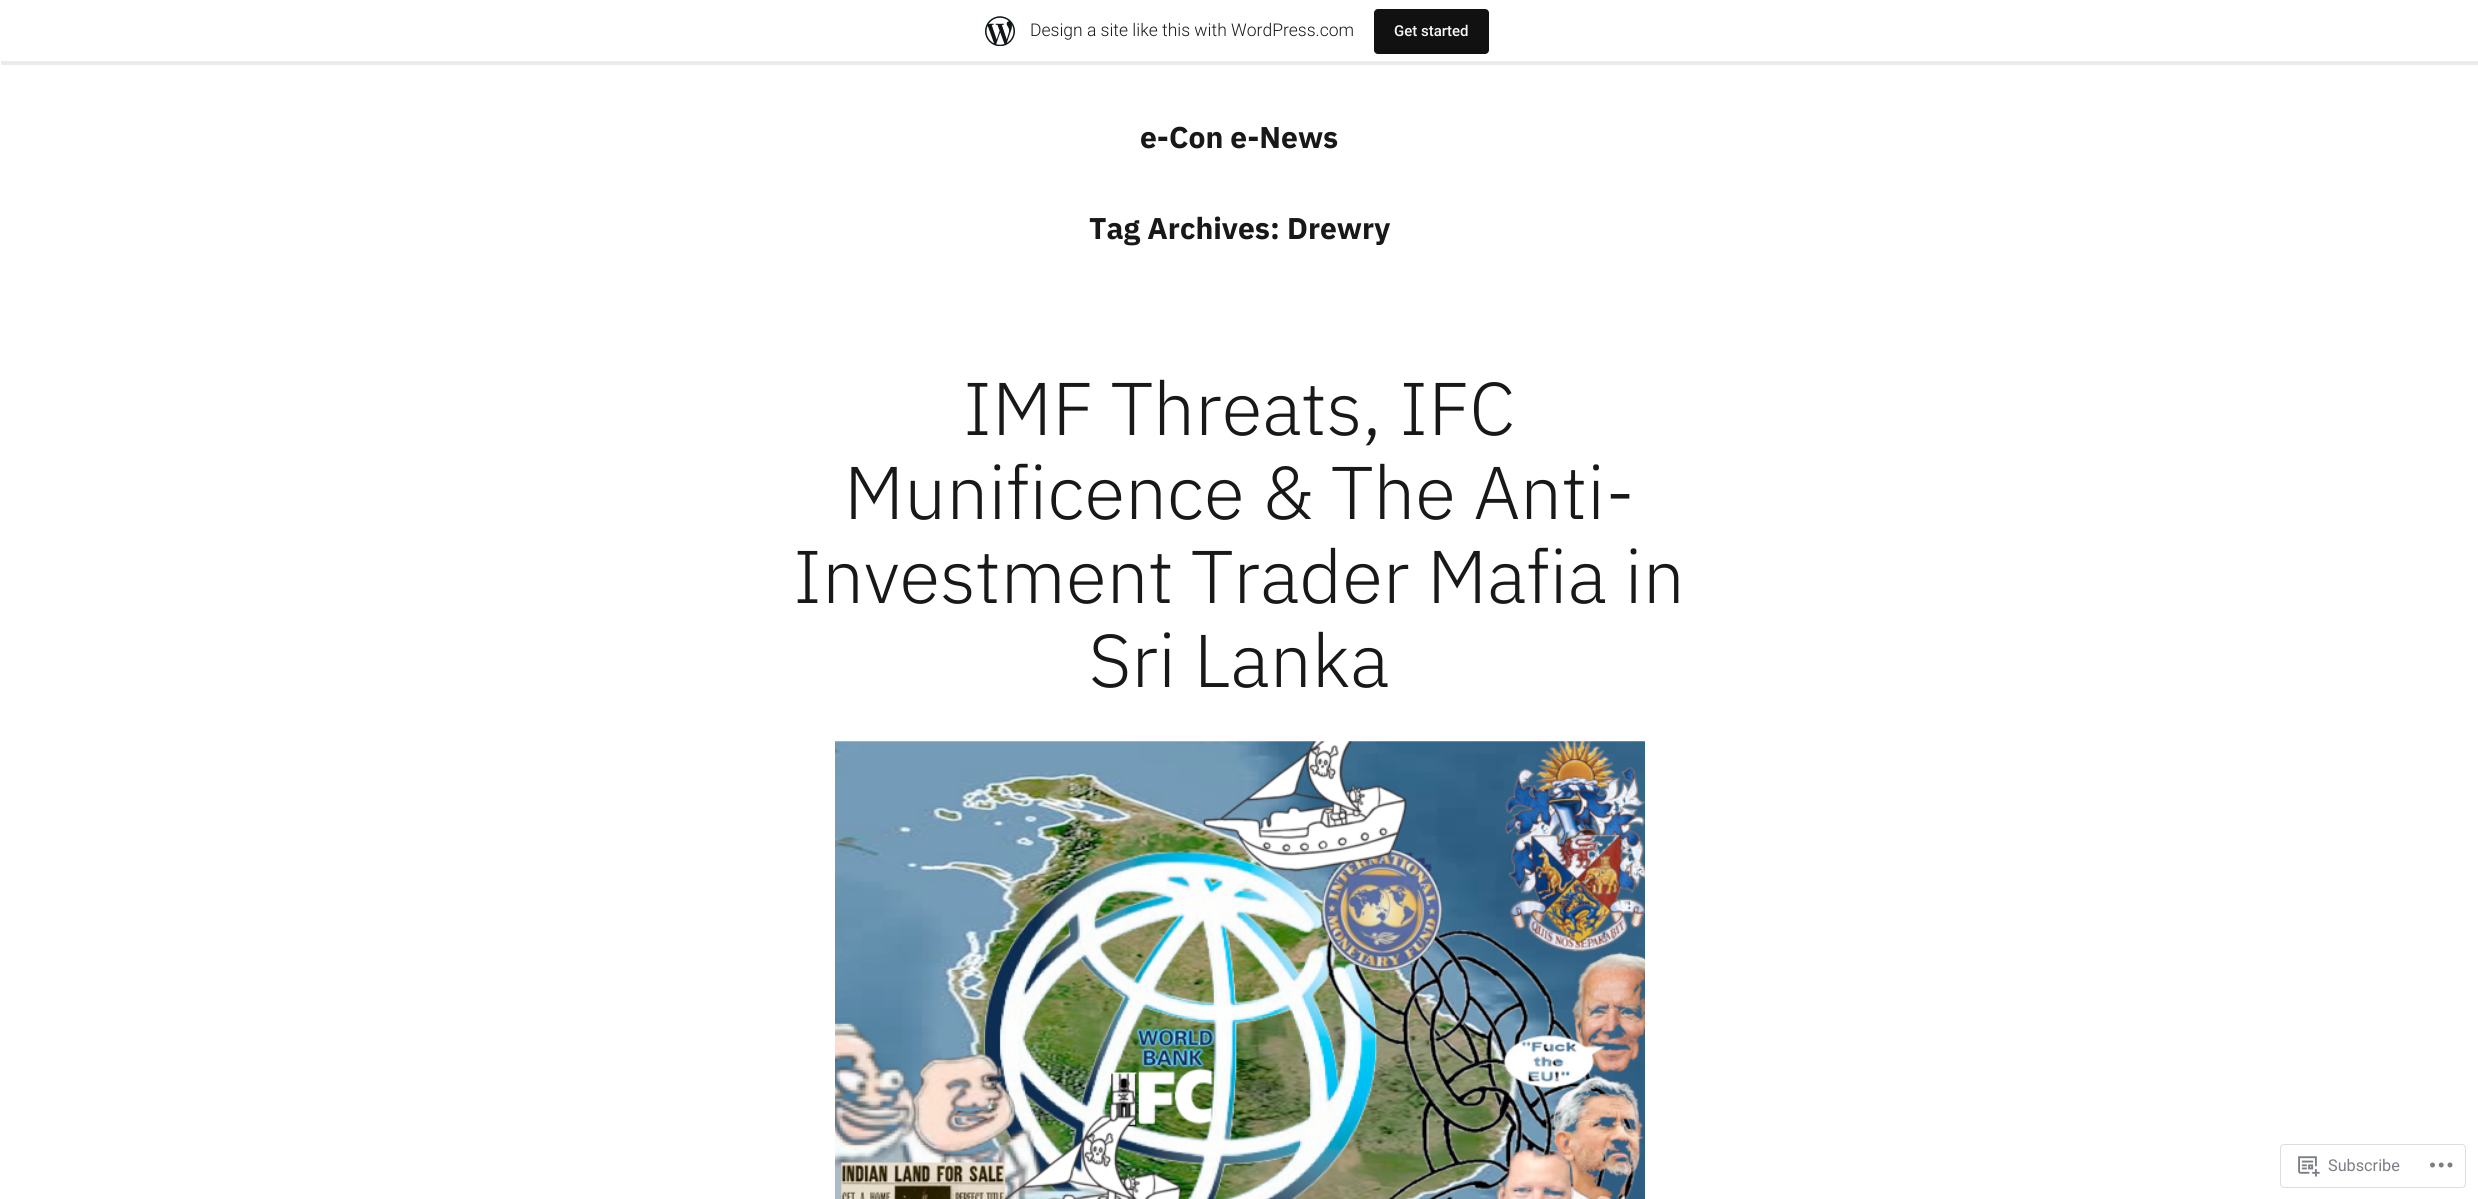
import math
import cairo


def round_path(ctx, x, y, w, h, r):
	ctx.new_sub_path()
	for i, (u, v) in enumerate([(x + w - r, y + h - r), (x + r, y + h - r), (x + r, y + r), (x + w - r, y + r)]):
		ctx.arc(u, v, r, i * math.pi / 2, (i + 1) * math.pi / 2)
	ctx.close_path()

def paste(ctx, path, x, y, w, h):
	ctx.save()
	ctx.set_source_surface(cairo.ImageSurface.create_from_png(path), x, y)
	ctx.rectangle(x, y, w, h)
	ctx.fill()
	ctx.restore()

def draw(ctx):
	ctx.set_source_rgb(1, 1, 1)
	ctx.paint()
	ctx.set_source_rgba(0, 0, 0, 0.08)
	ctx.new_path()
	ctx.move_to(1, 61)
	ctx.line_to(1, 65)
	ctx.line_to(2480, 65)
	ctx.line_to(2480, 4)
	ctx.line_to(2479, 4)
	ctx.line_to(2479, 61)
	ctx.close_path()
	ctx.fill()
	paste(ctx, 'media/1.png', 985, 16, 30, 30)
	ctx.select_font_face('Roboto Light')
	ctx.set_font_size(17.5)
	ctx.set_source_rgb(0.094, 0.094, 0.094)
	ctx.move_to(1030, 36)
	ctx.show_text('Design a site like this with WordPress.com')
	ctx.set_source_rgb(0.067, 0.067, 0.067)
	round_path(ctx, 1374, 9, 115, 45, 4)
	ctx.fill()
	ctx.select_font_face('Roboto Medium')
	ctx.set_font_size(15)
	ctx.set_source_rgb(0.965, 0.969, 0.969)
	ctx.move_to(1394, 36)
	ctx.show_text('Get started')
	ctx.select_font_face('IBM Plex Sans', cairo.FONT_SLANT_NORMAL, cairo.FONT_WEIGHT_BOLD)
	ctx.set_font_size(30)
	ctx.set_source_rgb(0.094, 0.094, 0.094)
	ctx.move_to(1140, 148)
	ctx.show_text('e-Con e-News')
	ctx.move_to(1089, 239)
	ctx.show_text('Tag Archives: Drewry')
	ctx.select_font_face('IBM Plex Sans Light')
	ctx.set_font_size(74.6)
	for x, y, s in [
		(963, 435, 'IMF Threats, IFC'),
		(844, 519, 'Munificence & The Anti-'),
		(793, 603, 'Investment Trader Mafia in'),
		(1089, 687, 'Sri Lanka'),
	]:
		ctx.move_to(x, y)
		ctx.show_text(s)
	paste(ctx, 'media/2.png', 835, 741, 810, 458)
	round_path(ctx, 2280.5, 1144.5, 185, 43, 3.5)
	ctx.set_source_rgb(0.867, 0.867, 0.875)
	ctx.set_line_width(1)
	ctx.stroke()
	paste(ctx, 'media/3.png', 2298, 1156, 22, 21)
	ctx.select_font_face('Roboto')
	ctx.set_font_size(16.25)
	ctx.set_source_rgb(0.482, 0.498, 0.522)
	ctx.move_to(2328, 1171)
	ctx.show_text('Subscribe')
	paste(ctx, 'media/4.png', 2430, 1162, 23, 6)


surface = cairo.ImageSurface(cairo.FORMAT_RGB24, 2478, 1199)
ctx = cairo.Context(surface)
options = cairo.FontOptions()
options.set_hint_metrics(cairo.HINT_METRICS_OFF)
options.set_hint_style(cairo.HINT_STYLE_NONE)
ctx.set_font_options(options)
ctx.set_miter_limit(4)
draw(ctx)
surface.write_to_png('image.png')
